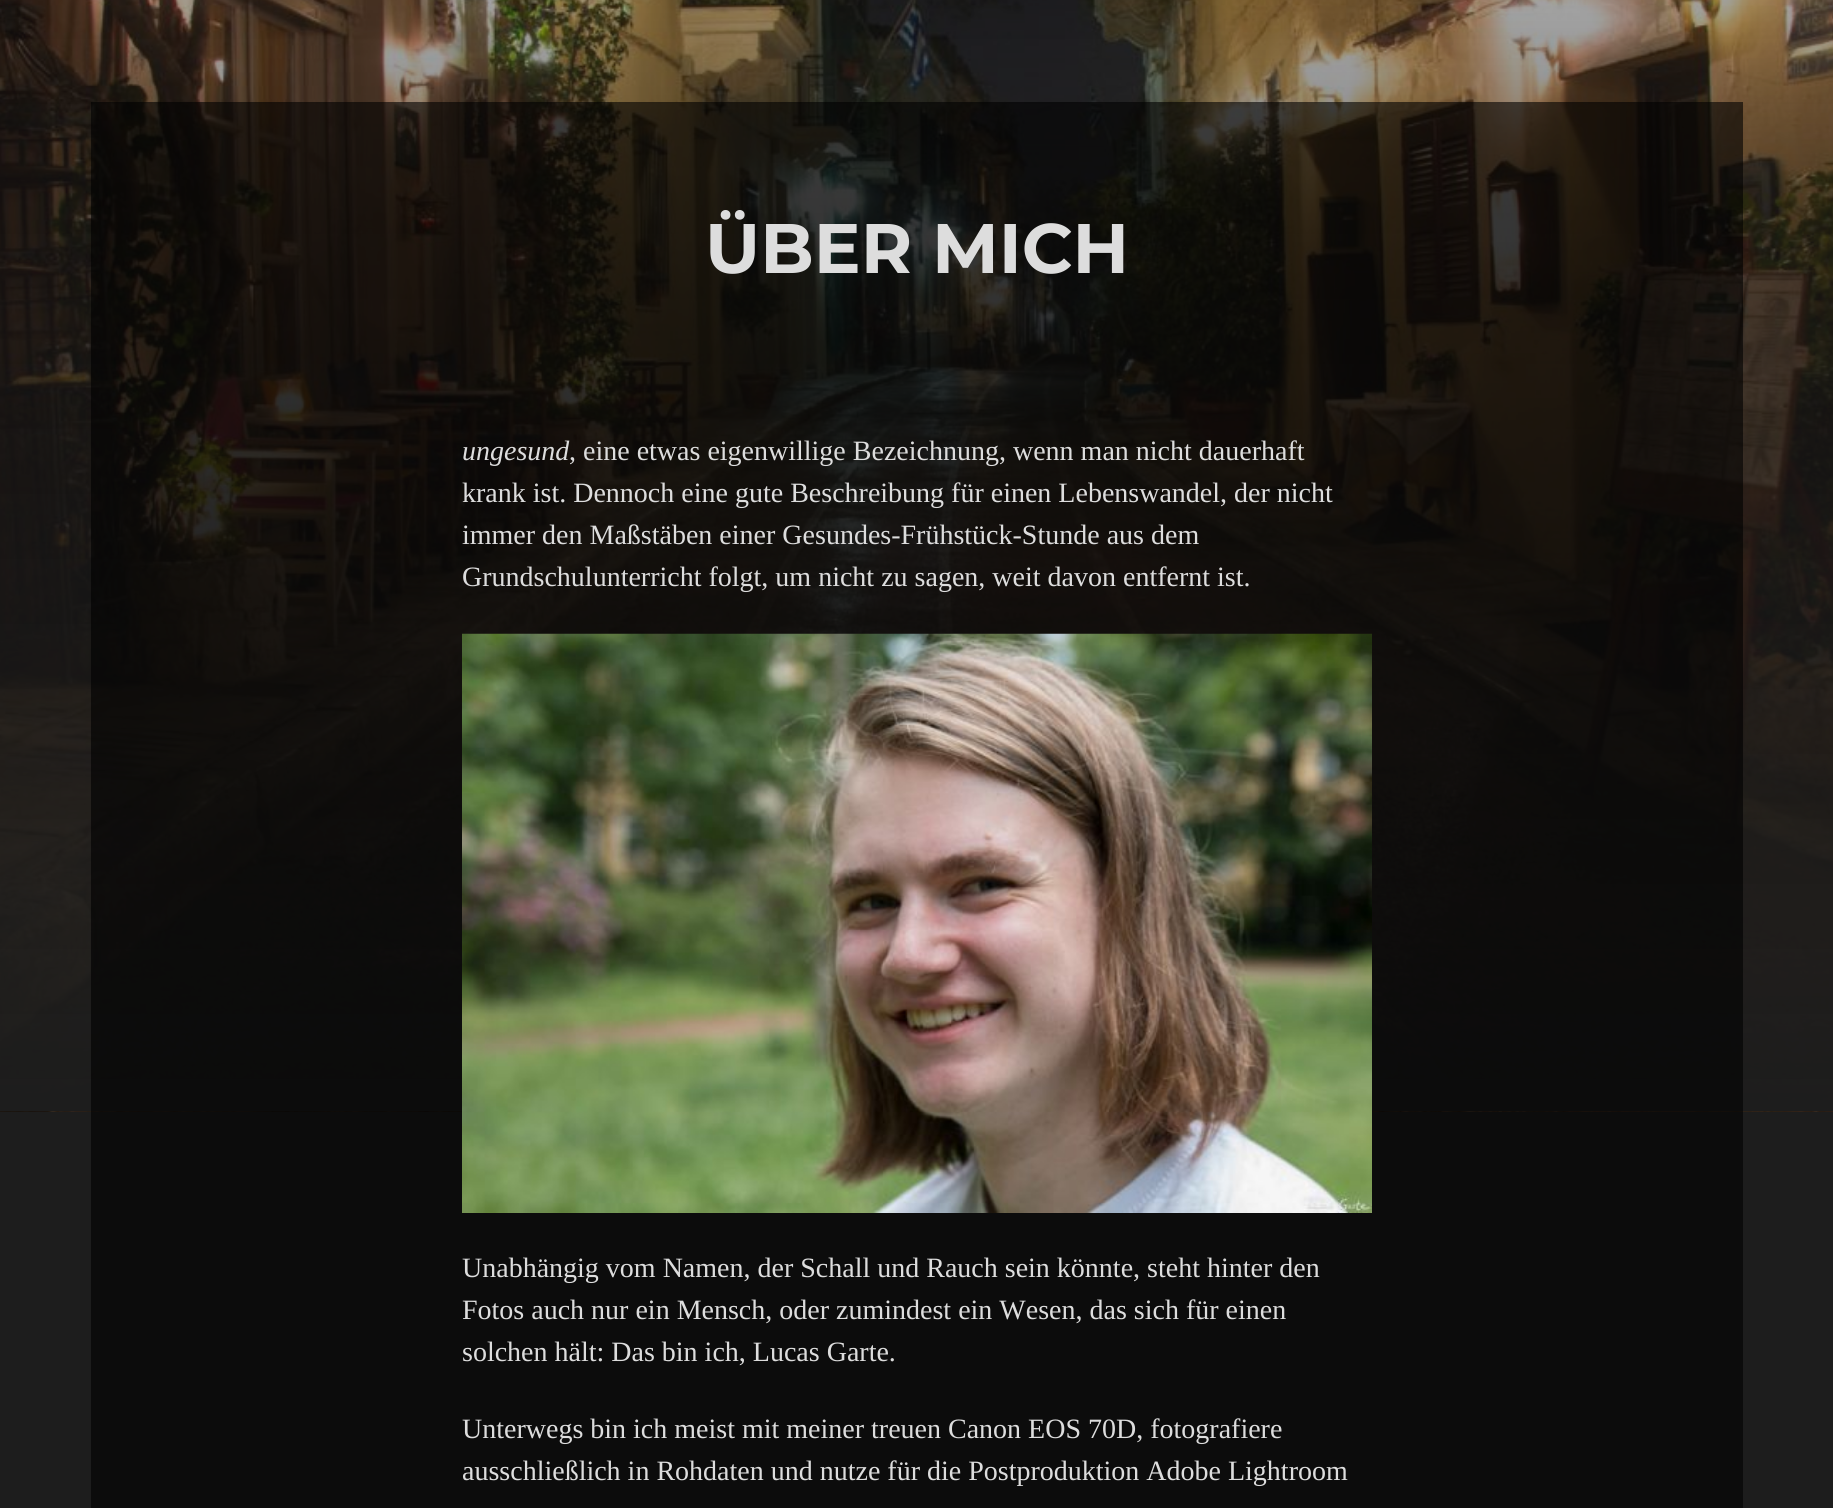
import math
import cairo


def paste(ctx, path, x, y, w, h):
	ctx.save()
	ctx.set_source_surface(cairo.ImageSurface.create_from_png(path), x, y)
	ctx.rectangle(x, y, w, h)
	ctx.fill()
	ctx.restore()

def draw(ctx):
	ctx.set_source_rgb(0.114, 0.114, 0.114)
	ctx.paint()
	paste(ctx, 'media/1.png', 0, 0, 1833, 1112)
	ctx.set_source_rgba(0, 0, 0, 0.6)
	ctx.rectangle(91, 102, 1652, 1406)
	ctx.fill()
	ctx.select_font_face('Montserrat', cairo.FONT_SLANT_NORMAL, cairo.FONT_WEIGHT_BOLD)
	ctx.set_font_size(70)
	ctx.set_source_rgb(0.867, 0.867, 0.867)
	ctx.move_to(705, 273)
	ctx.show_text('ÜBER MICH')
	ctx.select_font_face('Liberation Serif', cairo.FONT_SLANT_ITALIC)
	ctx.set_font_size(28)
	ctx.move_to(462, 460)
	ctx.show_text('ungesund')
	ctx.select_font_face('Liberation Serif')
	for x, y, s in [
		(569, 460, ', eine etwas eigenwillige Bezeichnung, wenn man nicht dauerhaft'),
		(462, 502, 'krank ist. Dennoch eine gute Beschreibung für einen Lebenswandel, der nicht'),
		(462, 544, 'immer den Maßstäben einer Gesundes-Frühstück-Stunde aus dem'),
		(462, 586, 'Grundschulunterricht folgt, um nicht zu sagen, weit davon entfernt ist.'),
	]:
		ctx.move_to(x, y)
		ctx.show_text(s)
	paste(ctx, 'media/2.png', 462, 633, 910, 580)
	for x, y, s in [
		(462, 1277, 'Unabhängig vom Namen, der Schall und Rauch sein könnte, steht hinter den'),
		(462, 1319, 'Fotos auch nur ein Mensch, oder zumindest ein Wesen, das sich für einen'),
		(462, 1361, 'solchen hält: Das bin ich, Lucas Garte.'),
		(462, 1438, 'Unterwegs bin ich meist mit meiner treuen Canon EOS 70D, fotografiere'),
		(462, 1480, 'ausschließlich in Rohdaten und nutze für die Postproduktion Adobe Lightroom'),
	]:
		ctx.move_to(x, y)
		ctx.show_text(s)


surface = cairo.ImageSurface(cairo.FORMAT_RGB24, 1833, 1508)
ctx = cairo.Context(surface)
options = cairo.FontOptions()
options.set_hint_metrics(cairo.HINT_METRICS_OFF)
options.set_hint_style(cairo.HINT_STYLE_NONE)
ctx.set_font_options(options)
ctx.set_miter_limit(4)
draw(ctx)
surface.write_to_png('image.png')
